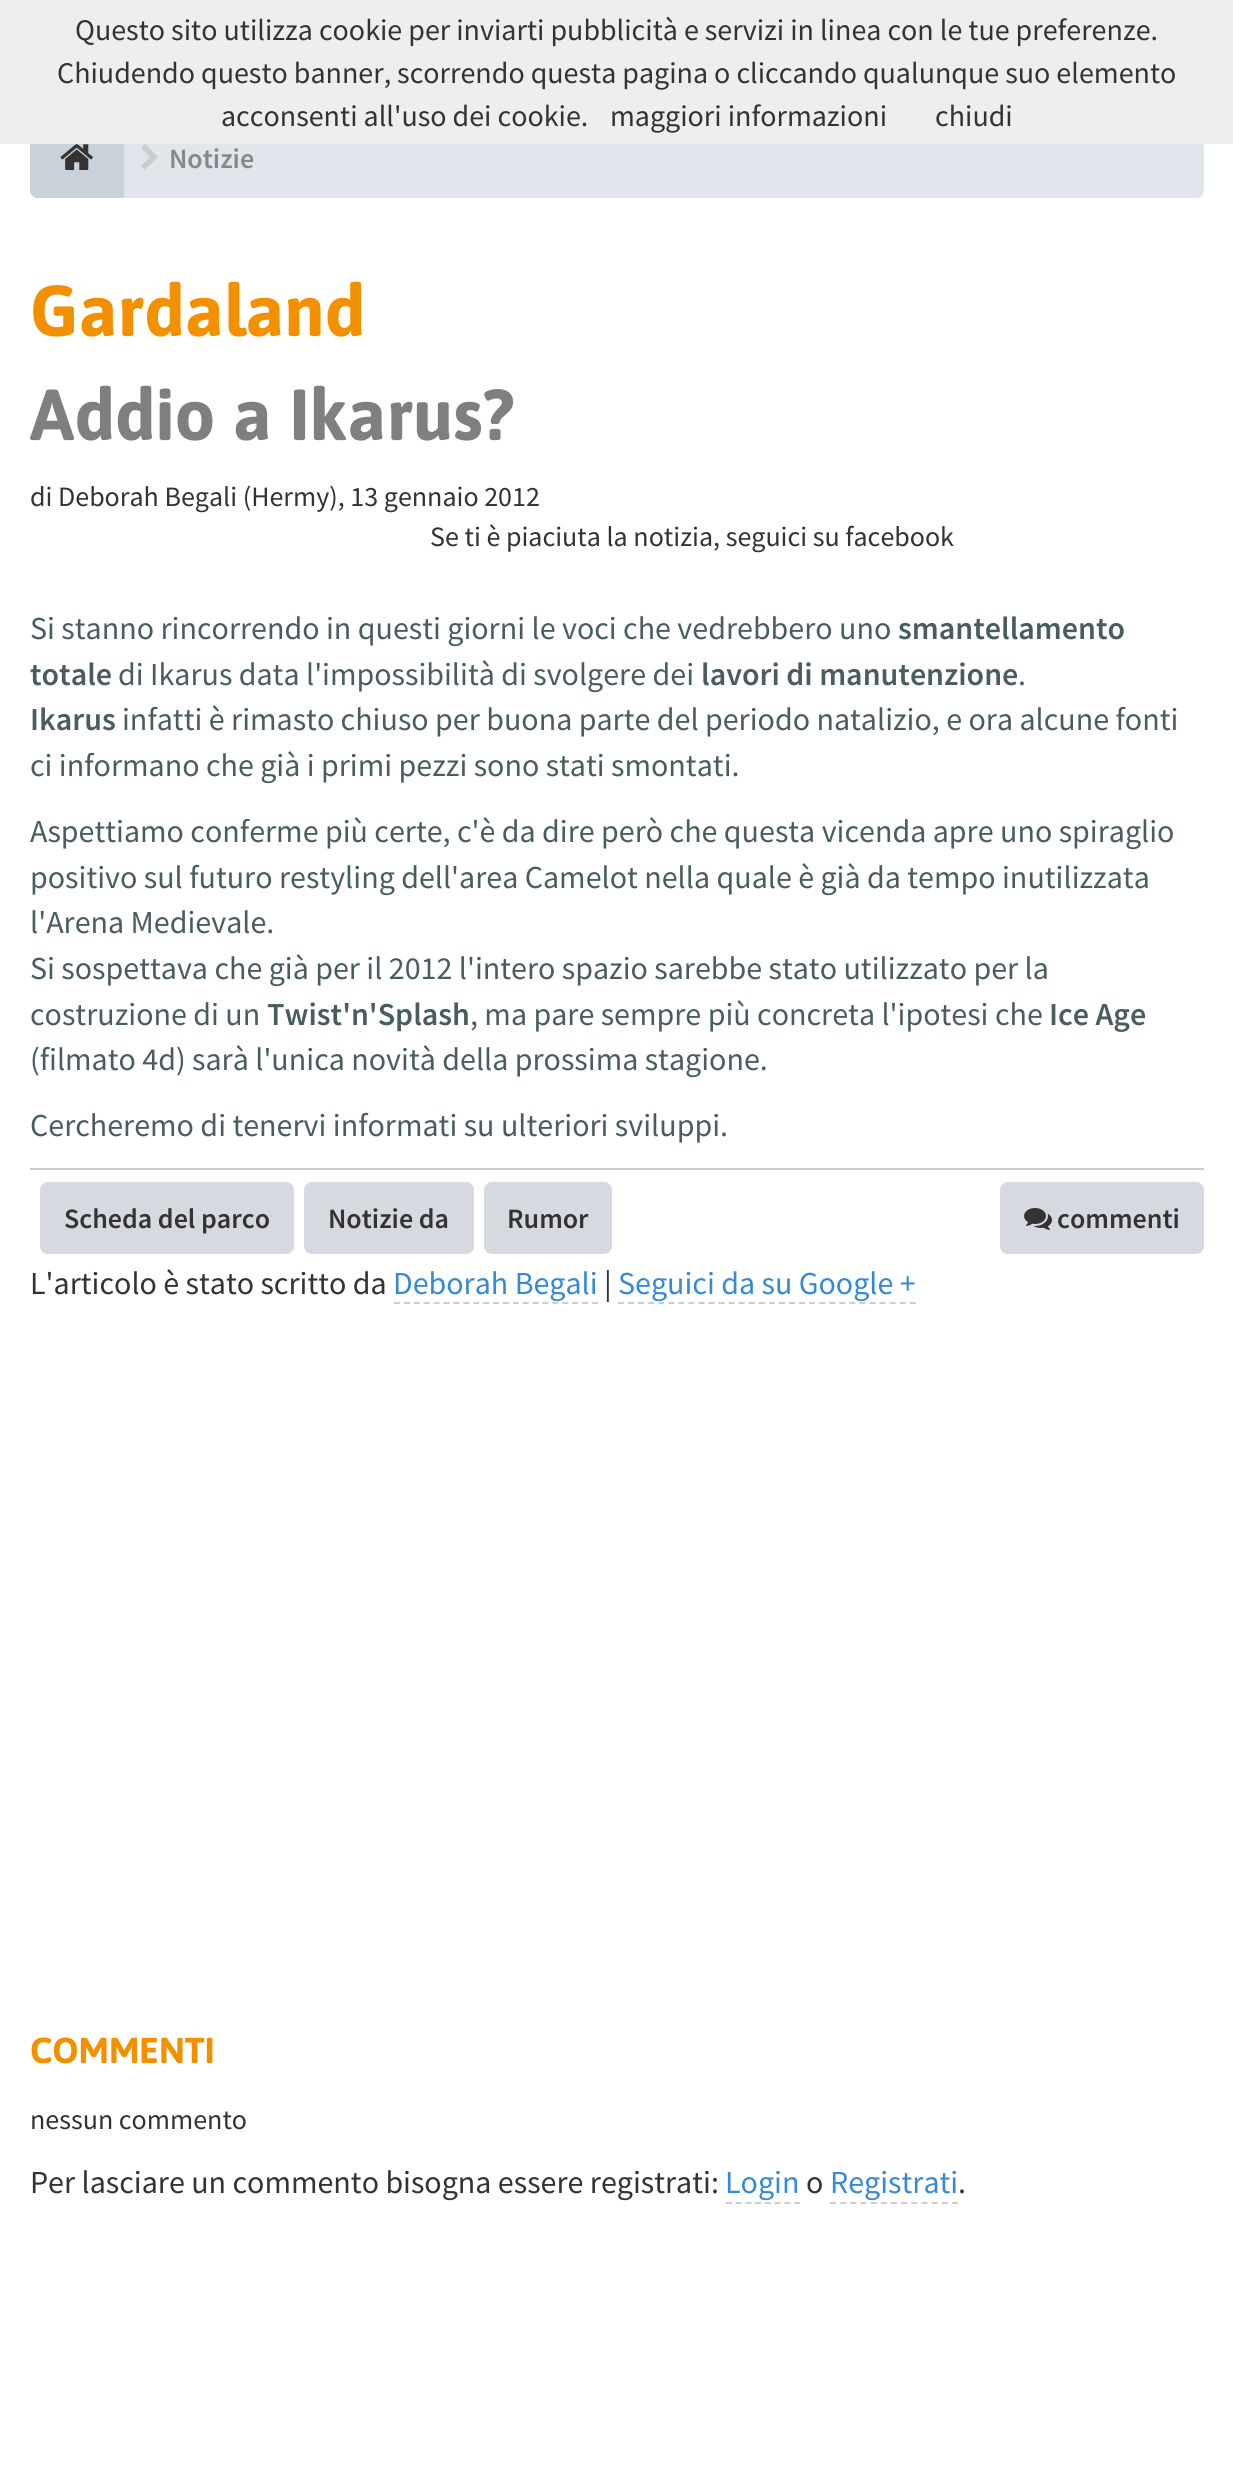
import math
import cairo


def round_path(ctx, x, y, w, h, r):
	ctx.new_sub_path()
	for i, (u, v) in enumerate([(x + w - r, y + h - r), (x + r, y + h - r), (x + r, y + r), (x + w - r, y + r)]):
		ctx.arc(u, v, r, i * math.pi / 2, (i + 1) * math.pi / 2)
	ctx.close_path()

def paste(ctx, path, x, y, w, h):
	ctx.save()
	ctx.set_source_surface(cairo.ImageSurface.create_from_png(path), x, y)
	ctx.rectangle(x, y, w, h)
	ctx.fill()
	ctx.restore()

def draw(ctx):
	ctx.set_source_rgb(1, 1, 1)
	ctx.paint()
	ctx.set_source_rgb(0.882, 0.898, 0.922)
	round_path(ctx, 30, 118, 1174, 80, 8)
	ctx.fill()
	ctx.set_source_rgb(0.784, 0.824, 0.847)
	ctx.new_path()
	ctx.move_to(38, 118)
	ctx.line_to(124, 118)
	ctx.line_to(124, 198)
	ctx.line_to(38, 198)
	ctx.curve_to(33.5, 198, 30, 194.5, 30, 190)
	ctx.line_to(30, 126)
	ctx.curve_to(30, 121.5, 33.5, 118, 38, 118)
	ctx.close_path()
	ctx.fill()
	ctx.set_source_rgb(0.933, 0.933, 0.933)
	ctx.rectangle(0, 0, 1233, 144)
	ctx.fill()
	ctx.select_font_face('Source Sans Pro')
	ctx.set_font_size(30)
	ctx.set_source_rgb(0.2, 0.2, 0.2)
	for x, y, s in [
		(75, 40, 'Questo sito utilizza cookie per inviarti pubblicità e servizi in linea con le tue preferenze.'),
		(57, 83, 'Chiudendo questo banner, scorrendo questa pagina o cliccando qualunque suo elemento'),
		(221, 126, 'acconsenti all\'uso dei cookie.'),
		(610, 126, 'maggiori informazioni'),
		(935, 126, 'chiudi'),
	]:
		ctx.move_to(x, y)
		ctx.show_text(s)
	paste(ctx, 'media/1.png', 60, 144, 33, 26)
	paste(ctx, 'media/2.png', 141, 144, 17, 26)
	ctx.select_font_face('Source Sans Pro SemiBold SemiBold')
	ctx.set_font_size(28)
	ctx.set_source_rgb(0.533, 0.533, 0.533)
	ctx.move_to(169, 168)
	ctx.show_text('Notizie')
	ctx.select_font_face('Asap', cairo.FONT_SLANT_NORMAL, cairo.FONT_WEIGHT_BOLD)
	ctx.set_font_size(72)
	ctx.set_source_rgb(0.949, 0.565, 0)
	ctx.move_to(30, 336)
	ctx.show_text('Gardaland')
	ctx.set_source_rgb(0.498, 0.498, 0.498)
	ctx.move_to(30, 440)
	ctx.show_text('Addio a Ikarus?')
	ctx.select_font_face('Source Sans Pro')
	ctx.set_font_size(28)
	ctx.set_source_rgb(0.2, 0.2, 0.2)
	ctx.move_to(30, 506)
	ctx.show_text('di Deborah Begali (Hermy), 13 gennaio 2012')
	ctx.move_to(430, 546)
	ctx.show_text('Se ti è piaciuta la notizia, seguici su facebook')
	ctx.set_font_size(32)
	ctx.set_source_rgb(0.286, 0.365, 0.376)
	ctx.move_to(30, 639)
	ctx.show_text('Si stanno rincorrendo in questi giorni le voci che vedrebbero uno')
	ctx.select_font_face('Source Sans Pro SemiBold SemiBold')
	ctx.move_to(898, 639)
	ctx.show_text('smantellamento')
	ctx.move_to(30, 685)
	ctx.show_text('totale')
	ctx.select_font_face('Source Sans Pro')
	ctx.move_to(118, 685)
	ctx.show_text('di Ikarus data l\'impossibilità di svolgere dei')
	ctx.select_font_face('Source Sans Pro SemiBold SemiBold')
	ctx.move_to(701, 685)
	ctx.show_text('lavori di manutenzione')
	ctx.select_font_face('Source Sans Pro')
	ctx.move_to(1018, 685)
	ctx.show_text('.')
	ctx.select_font_face('Source Sans Pro SemiBold SemiBold')
	ctx.move_to(30, 730)
	ctx.show_text('Ikarus')
	ctx.select_font_face('Source Sans Pro')
	for x, y, s in [
		(122, 730, 'infatti è rimasto chiuso per buona parte del periodo natalizio, e ora alcune fonti'),
		(30, 776, 'ci informano che già i primi pezzi sono stati smontati.'),
		(30, 842, 'Aspettiamo conferme più certe, c\'è da dire però che questa vicenda apre uno spiraglio'),
		(30, 888, 'positivo sul futuro restyling dell\'area Camelot nella quale è già da tempo inutilizzata'),
		(30, 933, 'l\'Arena Medievale.'),
		(30, 979, 'Si sospettava che già per il 2012 l\'intero spazio sarebbe stato utilizzato per la'),
		(30, 1025, 'costruzione di un'),
	]:
		ctx.move_to(x, y)
		ctx.show_text(s)
	ctx.select_font_face('Source Sans Pro SemiBold SemiBold')
	ctx.move_to(267, 1025)
	ctx.show_text('Twist\'n\'Splash')
	ctx.select_font_face('Source Sans Pro')
	ctx.move_to(470, 1025)
	ctx.show_text(', ma pare sempre più concreta l\'ipotesi che')
	ctx.select_font_face('Source Sans Pro SemiBold SemiBold')
	ctx.move_to(1049, 1025)
	ctx.show_text('Ice Age')
	ctx.select_font_face('Source Sans Pro')
	ctx.move_to(30, 1070)
	ctx.show_text('(filmato 4d) sarà l\'unica novità della prossima stagione.')
	ctx.move_to(30, 1136)
	ctx.show_text('Cercheremo di tenervi informati su ulteriori sviluppi.')
	ctx.set_source_rgb(0.8, 0.8, 0.8)
	ctx.rectangle(30, 1168, 1174, 2)
	ctx.fill()
	ctx.set_source_rgb(0.839, 0.851, 0.878)
	round_path(ctx, 40, 1182, 254, 72, 8)
	ctx.fill()
	ctx.select_font_face('Source Sans Pro SemiBold SemiBold')
	ctx.set_font_size(28)
	ctx.set_source_rgb(0.2, 0.2, 0.2)
	ctx.move_to(64, 1228)
	ctx.show_text('Scheda del parco')
	ctx.set_source_rgb(0.839, 0.851, 0.878)
	round_path(ctx, 304, 1182, 170, 72, 8)
	ctx.fill()
	ctx.set_source_rgb(0.2, 0.2, 0.2)
	ctx.move_to(328, 1228)
	ctx.show_text('Notizie da')
	ctx.set_source_rgb(0.839, 0.851, 0.878)
	round_path(ctx, 484, 1182, 128, 72, 8)
	ctx.fill()
	ctx.set_source_rgb(0.2, 0.2, 0.2)
	ctx.move_to(507, 1228)
	ctx.show_text('Rumor')
	ctx.set_source_rgb(0.839, 0.851, 0.878)
	round_path(ctx, 1000, 1182, 204, 72, 8)
	ctx.fill()
	paste(ctx, 'media/3.png', 1024, 1208, 28, 22)
	ctx.set_source_rgb(0.2, 0.2, 0.2)
	ctx.move_to(1057, 1228)
	ctx.show_text('commenti')
	ctx.select_font_face('Source Sans Pro')
	ctx.set_font_size(32)
	ctx.move_to(30, 1294)
	ctx.show_text('L\'articolo è stato scritto da')
	ctx.set_source_rgb(0.212, 0.541, 0.824)
	ctx.move_to(393, 1294)
	ctx.show_text('Deborah Begali')
	ctx.new_path()
	ctx.move_to(394, 1303)
	ctx.line_to(598, 1303)
	ctx.set_source_rgb(0.8, 0.8, 0.8)
	ctx.set_dash([6, 3.9])
	ctx.stroke()
	ctx.set_source_rgb(0.2, 0.2, 0.2)
	ctx.move_to(604, 1294)
	ctx.show_text('|')
	ctx.set_source_rgb(0.212, 0.541, 0.824)
	ctx.move_to(618, 1294)
	ctx.show_text('Seguici da su Google +')
	ctx.new_path()
	ctx.move_to(618, 1303)
	ctx.line_to(916, 1303)
	ctx.set_source_rgb(0.8, 0.8, 0.8)
	ctx.set_dash([6, 4.06])
	ctx.stroke()
	ctx.select_font_face('Asap', cairo.FONT_SLANT_NORMAL, cairo.FONT_WEIGHT_BOLD)
	ctx.set_font_size(36)
	ctx.set_source_rgb(0.949, 0.565, 0)
	ctx.move_to(30, 2063)
	ctx.show_text('COMMENTI')
	ctx.select_font_face('Source Sans Pro')
	ctx.set_font_size(28)
	ctx.set_source_rgb(0.2, 0.2, 0.2)
	ctx.move_to(30, 2129)
	ctx.show_text('nessun commento')
	ctx.set_font_size(32)
	ctx.move_to(30, 2193)
	ctx.show_text('Per lasciare un commento bisogna essere registrati:')
	ctx.set_source_rgb(0.212, 0.541, 0.824)
	ctx.move_to(725, 2193)
	ctx.show_text('Login')
	ctx.new_path()
	ctx.move_to(726, 2203)
	ctx.line_to(800, 2203)
	ctx.set_source_rgb(0.8, 0.8, 0.8)
	ctx.set_dash([6, 3.72])
	ctx.stroke()
	ctx.set_source_rgb(0.2, 0.2, 0.2)
	ctx.move_to(806, 2193)
	ctx.show_text('o')
	ctx.set_source_rgb(0.212, 0.541, 0.824)
	ctx.move_to(830, 2193)
	ctx.show_text('Registrati')
	ctx.new_path()
	ctx.move_to(830, 2203)
	ctx.line_to(958, 2203)
	ctx.set_source_rgb(0.8, 0.8, 0.8)
	ctx.set_dash([6, 4.16])
	ctx.stroke()
	ctx.set_source_rgb(0.2, 0.2, 0.2)
	ctx.move_to(958, 2193)
	ctx.show_text('.')


surface = cairo.ImageSurface(cairo.FORMAT_RGB24, 1233, 2472)
ctx = cairo.Context(surface)
options = cairo.FontOptions()
options.set_hint_metrics(cairo.HINT_METRICS_OFF)
options.set_hint_style(cairo.HINT_STYLE_NONE)
ctx.set_font_options(options)
ctx.set_miter_limit(4)
draw(ctx)
surface.write_to_png('image.png')
